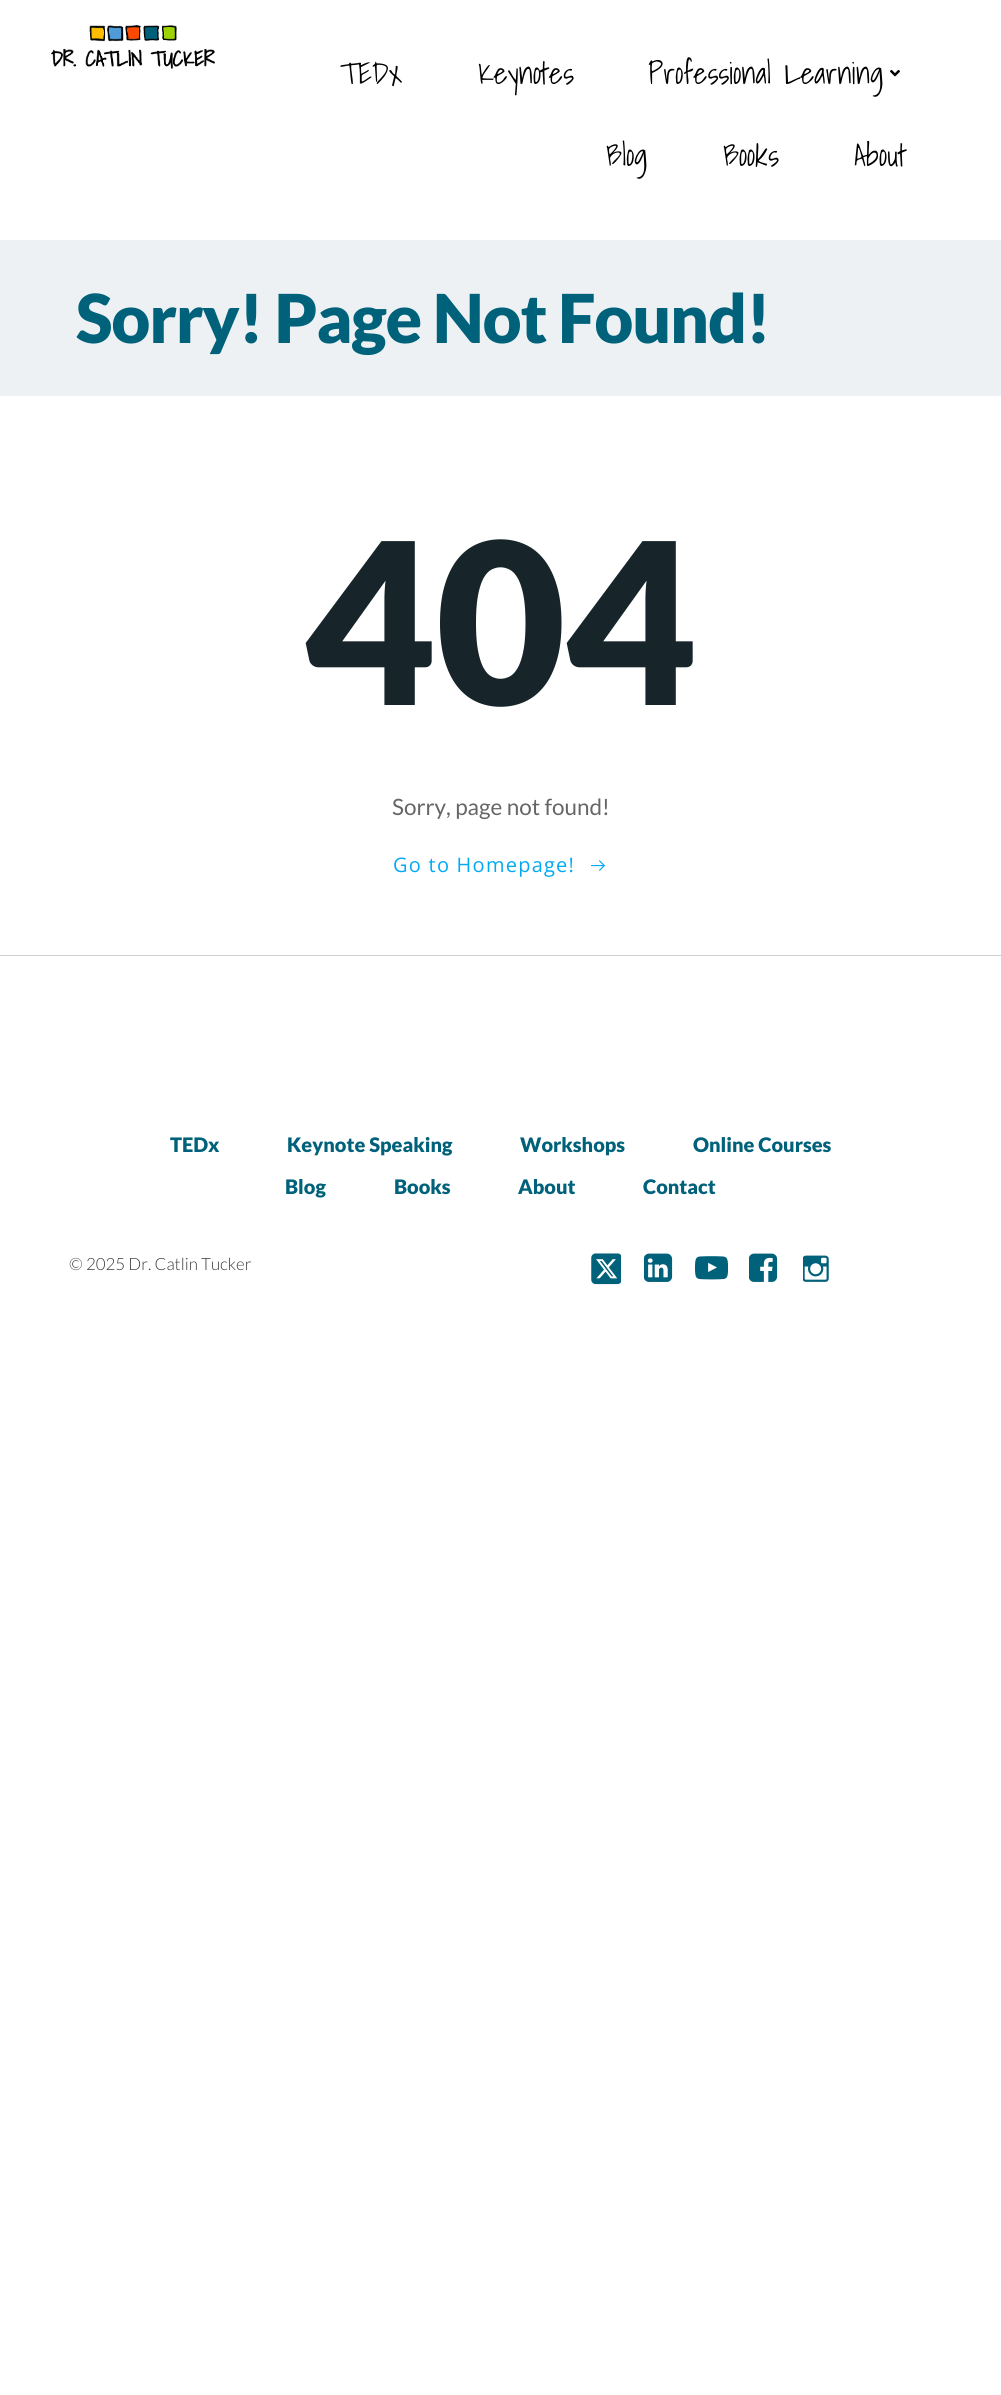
#include <cairo.h>
#include <math.h>
#include <stddef.h>


static void rgb(cairo_t *cr, int r, int g, int b)
{
	cairo_set_source_rgb(cr, r / 255.0, g / 255.0, b / 255.0);
}

static void face(cairo_t *cr, const char *family, double size, int italic, int bold)
{
	cairo_select_font_face(cr, family, italic ? CAIRO_FONT_SLANT_ITALIC : CAIRO_FONT_SLANT_NORMAL,
		bold ? CAIRO_FONT_WEIGHT_BOLD : CAIRO_FONT_WEIGHT_NORMAL);
	cairo_set_font_size(cr, size);
}

static void label(cairo_t *cr, double x, double y, const char *s)
{
	cairo_move_to(cr, x, y);
	cairo_show_text(cr, s);
}

static void tracked(cairo_t *cr, double x, double y, const char *s, double letter, double word)
{
	cairo_move_to(cr, x, y);
	while (*s) {
		char ch[5] = {0};
		int n = 0;
		do ch[n++] = *s++; while ((*s & 0xC0) == 0x80);
		cairo_show_text(cr, ch);
		cairo_rel_move_to(cr, letter + word * (*ch == ' '), 0);
	}
}

static void rect(cairo_t *cr, double x, double y, double w, double h)
{
	cairo_rectangle(cr, x, y, w, h);
	cairo_fill(cr);
}

static void image(cairo_t *cr, const char *path, double x, double y, double w, double h)
{
	cairo_surface_t *image = cairo_image_surface_create_from_png(path);
	cairo_save(cr);
	cairo_set_source_surface(cr, image, x, y);
	cairo_rectangle(cr, x, y, w, h);
	cairo_fill(cr);
	cairo_restore(cr);
	cairo_surface_destroy(image);
}

static void draw(cairo_t *cr) {
	rgb(cr, 255, 255, 255);
	cairo_paint(cr);
	image(cr, "image0.png", 51, 25, 164, 44);
	face(cr, "Shadows Into Light Light", 30, 0, 0);
	rgb(cr, 0, 0, 0);
	label(cr, 340, 84, "TEDx");
	label(cr, 478, 84, "Keynotes");
	label(cr, 648, 84, "Professional Learning");
	image(cr, "image1.png", 890, 69, 10, 8);
	label(cr, 606, 166, "Blog");
	label(cr, 723, 166, "Books");
	label(cr, 854, 166, "About");
	rgb(cr, 237, 241, 243);
	rect(cr, 0, 240, 1001, 156);
	face(cr, "Lato Black", 67.5, 0, 0);
	rgb(cr, 0, 97, 122);
	tracked(cr, 76, 343, "Sorry! Page Not Found!", -1.25, 0);
	face(cr, "Lato Black", 225, 0, 0);
	rgb(cr, 23, 37, 42);
	label(cr, 305, 705, "404");
	face(cr, "Lato", 22.5, 0, 0);
	rgb(cr, 102, 102, 102);
	label(cr, 392, 815, "Sorry, page not found!");
	face(cr, "Open Sans", 20, 0, 0);
	rgb(cr, 3, 169, 244);
	tracked(cr, 393, 872, "Go to Homepage!", 1.25, 0);
	image(cr, "image2.png", 591, 860, 14, 11);
	rgb(cr, 208, 208, 208);
	rect(cr, 0, 955, 1001, 1);
	face(cr, "Lato Black", 20, 0, 0);
	rgb(cr, 0, 97, 122);
	label(cr, 170, 1152, "TEDx");
	label(cr, 287, 1152, "Keynote Speaking");
	label(cr, 520, 1152, "Workshops");
	label(cr, 693, 1152, "Online Courses");
	label(cr, 285, 1194, "Blog");
	label(cr, 394, 1194, "Books");
	label(cr, 518, 1194, "About");
	label(cr, 643, 1194, "Contact");
	face(cr, "Lato Light", 16.9, 0, 0);
	rgb(cr, 60, 60, 60);
	label(cr, 69, 1270, "© 2025 Dr. Catlin Tucker");
	image(cr, "image3.png", 591, 1253, 30, 32);
	image(cr, "image4.png", 644, 1253, 29, 29);
	image(cr, "image5.png", 695, 1256, 33, 24);
	image(cr, "image6.png", 749, 1253, 29, 29);
	image(cr, "image7.png", 803, 1255, 26, 27);
}

int main(void) {
	cairo_surface_t *surface = cairo_image_surface_create(CAIRO_FORMAT_RGB24, 1001, 2395);
	cairo_t *cr = cairo_create(surface);
	cairo_font_options_t *options = cairo_font_options_create();
	cairo_font_options_set_hint_metrics(options, CAIRO_HINT_METRICS_OFF);
	cairo_font_options_set_hint_style(options, CAIRO_HINT_STYLE_NONE);
	cairo_set_font_options(cr, options);
	cairo_set_miter_limit(cr, 4);
	draw(cr);
	cairo_surface_write_to_png(surface, "render.png");
	cairo_font_options_destroy(options);
	cairo_destroy(cr);
	cairo_surface_destroy(surface);
	return 0;
}
